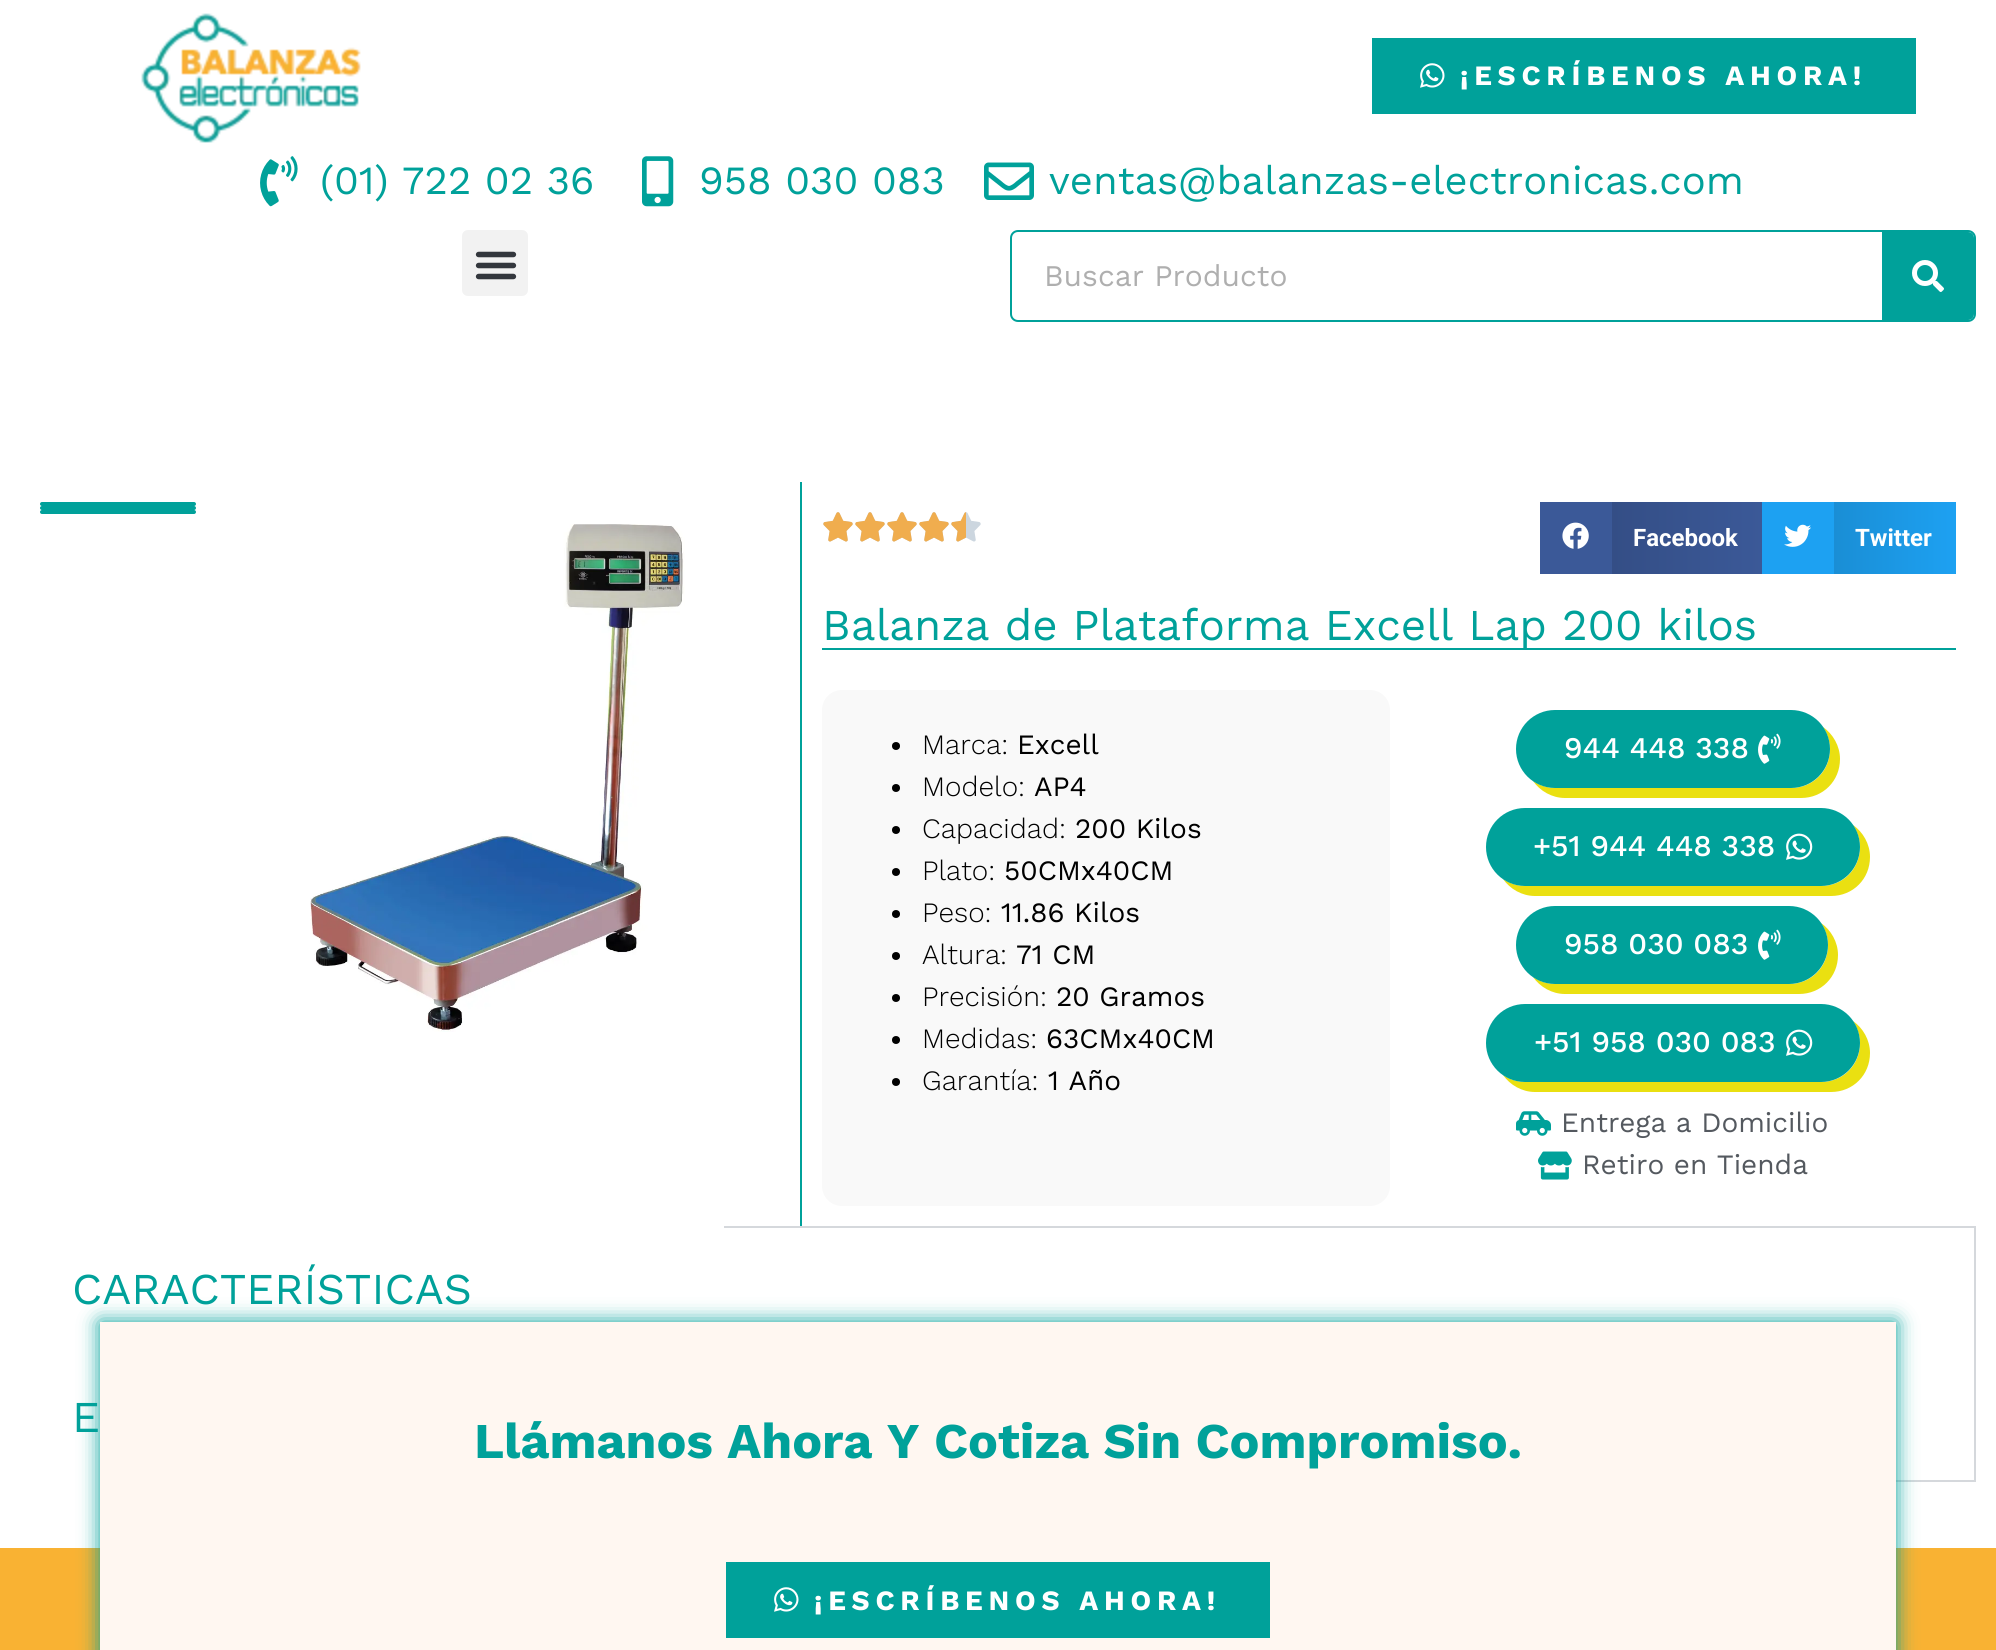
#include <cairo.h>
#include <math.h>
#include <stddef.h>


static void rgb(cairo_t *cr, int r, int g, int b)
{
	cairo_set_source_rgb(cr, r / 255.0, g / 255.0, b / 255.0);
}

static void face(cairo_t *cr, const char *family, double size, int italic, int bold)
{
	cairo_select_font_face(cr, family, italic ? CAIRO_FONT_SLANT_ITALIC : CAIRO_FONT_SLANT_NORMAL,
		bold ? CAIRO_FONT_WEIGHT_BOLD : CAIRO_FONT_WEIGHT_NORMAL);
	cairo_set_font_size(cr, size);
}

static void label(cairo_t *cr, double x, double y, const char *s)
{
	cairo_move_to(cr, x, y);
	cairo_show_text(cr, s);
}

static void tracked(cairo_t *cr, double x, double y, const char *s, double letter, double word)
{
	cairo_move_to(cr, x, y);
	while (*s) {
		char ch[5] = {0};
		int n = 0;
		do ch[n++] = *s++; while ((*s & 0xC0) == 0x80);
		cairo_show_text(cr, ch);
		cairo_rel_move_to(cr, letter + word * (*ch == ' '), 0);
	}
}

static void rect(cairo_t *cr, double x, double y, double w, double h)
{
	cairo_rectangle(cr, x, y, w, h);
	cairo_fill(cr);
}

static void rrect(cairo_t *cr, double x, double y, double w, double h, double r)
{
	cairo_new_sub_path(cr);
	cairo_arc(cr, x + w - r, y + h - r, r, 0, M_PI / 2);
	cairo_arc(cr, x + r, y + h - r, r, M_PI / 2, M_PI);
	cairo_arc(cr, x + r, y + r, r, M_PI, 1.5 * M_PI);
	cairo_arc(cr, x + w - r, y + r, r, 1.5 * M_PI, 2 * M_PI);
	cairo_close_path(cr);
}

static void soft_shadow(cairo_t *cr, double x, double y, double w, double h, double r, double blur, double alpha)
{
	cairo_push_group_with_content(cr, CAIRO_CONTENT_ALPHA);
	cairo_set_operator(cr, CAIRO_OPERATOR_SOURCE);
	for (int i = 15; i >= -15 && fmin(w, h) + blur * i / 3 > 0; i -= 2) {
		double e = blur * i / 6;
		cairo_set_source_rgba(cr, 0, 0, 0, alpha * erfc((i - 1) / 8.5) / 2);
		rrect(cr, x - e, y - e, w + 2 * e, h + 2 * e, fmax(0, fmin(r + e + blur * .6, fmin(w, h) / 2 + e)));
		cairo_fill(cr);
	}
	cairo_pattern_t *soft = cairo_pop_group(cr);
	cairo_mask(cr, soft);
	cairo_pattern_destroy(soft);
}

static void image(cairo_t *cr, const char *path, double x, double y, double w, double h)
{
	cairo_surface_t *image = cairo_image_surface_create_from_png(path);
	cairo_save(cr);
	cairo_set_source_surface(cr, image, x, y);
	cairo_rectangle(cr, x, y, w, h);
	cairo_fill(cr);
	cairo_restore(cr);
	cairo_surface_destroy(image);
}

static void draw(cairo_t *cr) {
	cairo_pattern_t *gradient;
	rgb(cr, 255, 255, 255);
	cairo_paint(cr);
	image(cr, "image0.png", 141, 13, 220, 130);
	rgb(cr, 0, 161, 154);
	rect(cr, 1372, 38, 544, 76);
	image(cr, "image1.png", 1420, 63, 25, 25);
	face(cr, "Work Sans", 28, 0, 1);
	rgb(cr, 255, 255, 255);
	tracked(cr, 1460, 85, "¡ESCRÍBENOS AHORA!", 5.8, 0);
	image(cr, "image2.png", 260, 156, 38, 51);
	face(cr, "Work Sans", 40, 0, 0);
	rgb(cr, 0, 161, 154);
	label(cr, 320, 194, "(01) 722 02 36");
	image(cr, "image3.png", 642, 156, 32, 51);
	label(cr, 699, 194, "958 030 083");
	image(cr, "image4.png", 984, 162, 50, 38);
	label(cr, 1049, 194, "ventas@balanzas-electronicas.com");
	rgb(cr, 242, 242, 242);
	rrect(cr, 462, 230, 66, 66, 6);
	cairo_fill(cr);
	image(cr, "image5.png", 475, 251, 42, 29);
	rrect(cr, 1011, 231, 964, 90, 7);
	rgb(cr, 0, 161, 154);
	cairo_stroke(cr);
	face(cr, "Work Sans", 30, 0, 0);
	rgb(cr, 175, 175, 175);
	label(cr, 1044, 286, "Buscar Producto");
	rgb(cr, 0, 161, 154);
	cairo_new_path(cr);
	cairo_move_to(cr, 1882, 232);
	cairo_line_to(cr, 1968, 232);
	cairo_curve_to(cr, 1971.5, 232, 1974, 234.5, 1974, 238);
	cairo_line_to(cr, 1974, 314);
	cairo_curve_to(cr, 1974, 317.5, 1971.5, 320, 1968, 320);
	cairo_line_to(cr, 1882, 320);
	cairo_close_path(cr);
	cairo_fill(cr);
	image(cr, "image6.png", 1912, 260, 32, 32);
	rrect(cr, 40, 502, 156, 4, 2);
	cairo_fill(cr);
	rrect(cr, 40, 506, 156, 4, 2);
	cairo_fill(cr);
	rrect(cr, 40, 510, 156, 4, 2);
	cairo_fill(cr);
	rect(cr, 800, 482, 2, 744);
	image(cr, "image7.png", 310, 524, 375, 508);
	image(cr, "image8.png", 823, 512, 30, 30);
	image(cr, "image9.png", 823, 512, 30, 30);
	image(cr, "image8.png", 855, 512, 30, 30);
	image(cr, "image9.png", 855, 512, 30, 30);
	image(cr, "image8.png", 887, 512, 30, 30);
	image(cr, "image9.png", 887, 512, 30, 30);
	image(cr, "image8.png", 919, 512, 30, 30);
	image(cr, "image9.png", 919, 512, 30, 30);
	image(cr, "image8.png", 951, 512, 30, 30);
	image(cr, "image10.png", 951, 512, 15, 30);
	rgb(cr, 59, 89, 152);
	rect(cr, 1540, 502, 72, 72);
	image(cr, "image11.png", 1562, 522, 27, 27);
	gradient = cairo_pattern_create_linear(1612, 538, 1762, 538);
	cairo_pattern_add_color_stop_rgba(gradient, 0, 0.204, 0.306, 0.525, 1);
	cairo_pattern_add_color_stop_rgba(gradient, 1, 0.231, 0.349, 0.596, 1);
	cairo_set_source(cr, gradient);
	cairo_pattern_destroy(gradient);
	rect(cr, 1612, 502, 150, 72);
	face(cr, "Roboto", 24, 0, 1);
	rgb(cr, 255, 255, 255);
	label(cr, 1633, 546, "Facebook");
	rgb(cr, 29, 161, 242);
	rect(cr, 1762, 502, 72, 72);
	image(cr, "image12.png", 1784, 524, 27, 23);
	gradient = cairo_pattern_create_linear(1834, 538, 1956, 538);
	cairo_pattern_add_color_stop_rgba(gradient, 0, 0.102, 0.557, 0.835, 1);
	cairo_pattern_add_color_stop_rgba(gradient, 1, 0.114, 0.631, 0.949, 1);
	cairo_set_source(cr, gradient);
	cairo_pattern_destroy(gradient);
	rect(cr, 1834, 502, 122, 72);
	rgb(cr, 255, 255, 255);
	label(cr, 1855, 546, "Twitter");
	rgb(cr, 0, 161, 154);
	rect(cr, 822, 648, 1134, 2);
	face(cr, "Work Sans", 44, 0, 0);
	label(cr, 822, 640, "Balanza de Plataforma Excell Lap 200 kilos");
	rgb(cr, 249, 249, 249);
	rrect(cr, 822, 690, 568, 516, 20);
	cairo_fill(cr);
	rgb(cr, 0, 0, 0);
	cairo_arc(cr, 896, 746, 4, 0, 2 * M_PI);
	cairo_fill(cr);
	face(cr, "Work Sans Light", 28, 0, 0);
	label(cr, 922, 754, "Marca:");
	face(cr, "Work Sans", 28, 0, 0);
	label(cr, 1017, 754, "Excell");
	cairo_new_path(cr);
	cairo_arc(cr, 896, 788, 4, 0, 2 * M_PI);
	cairo_fill(cr);
	face(cr, "Work Sans Light", 28, 0, 0);
	label(cr, 922, 796, "Modelo:");
	face(cr, "Work Sans", 28, 0, 0);
	label(cr, 1034, 796, "AP4");
	cairo_new_path(cr);
	cairo_arc(cr, 896, 830, 4, 0, 2 * M_PI);
	cairo_fill(cr);
	face(cr, "Work Sans Light", 28, 0, 0);
	label(cr, 922, 838, "Capacidad:");
	face(cr, "Work Sans", 28, 0, 0);
	label(cr, 1075, 838, "200 Kilos");
	cairo_new_path(cr);
	cairo_arc(cr, 896, 872, 4, 0, 2 * M_PI);
	cairo_fill(cr);
	face(cr, "Work Sans Light", 28, 0, 0);
	label(cr, 922, 880, "Plato:");
	face(cr, "Work Sans", 28, 0, 0);
	label(cr, 1004, 880, "50CMx40CM");
	cairo_new_path(cr);
	cairo_arc(cr, 896, 914, 4, 0, 2 * M_PI);
	cairo_fill(cr);
	face(cr, "Work Sans Light", 28, 0, 0);
	label(cr, 922, 922, "Peso:");
	face(cr, "Work Sans", 28, 0, 0);
	label(cr, 1001, 922, "11.86 Kilos");
	cairo_new_path(cr);
	cairo_arc(cr, 896, 956, 4, 0, 2 * M_PI);
	cairo_fill(cr);
	face(cr, "Work Sans Light", 28, 0, 0);
	label(cr, 922, 964, "Altura:");
	face(cr, "Work Sans", 28, 0, 0);
	label(cr, 1016, 964, "71 CM");
	cairo_new_path(cr);
	cairo_arc(cr, 896, 998, 4, 0, 2 * M_PI);
	cairo_fill(cr);
	face(cr, "Work Sans Light", 28, 0, 0);
	label(cr, 922, 1006, "Precisión:");
	face(cr, "Work Sans", 28, 0, 0);
	label(cr, 1056, 1006, "20 Gramos");
	cairo_new_path(cr);
	cairo_arc(cr, 896, 1040, 4, 0, 2 * M_PI);
	cairo_fill(cr);
	face(cr, "Work Sans Light", 28, 0, 0);
	label(cr, 922, 1048, "Medidas:");
	face(cr, "Work Sans", 28, 0, 0);
	label(cr, 1046, 1048, "63CMx40CM");
	cairo_new_path(cr);
	cairo_arc(cr, 896, 1082, 4, 0, 2 * M_PI);
	cairo_fill(cr);
	face(cr, "Work Sans Light", 28, 0, 0);
	label(cr, 922, 1090, "Garantía:");
	face(cr, "Work Sans", 28, 0, 0);
	label(cr, 1048, 1090, "1 Año");
	rgb(cr, 234, 224, 17);
	cairo_new_path(cr);
	cairo_move_to(cr, 1533, 781);
	cairo_curve_to(cr, 1540, 791, 1552, 798, 1565, 798);
	cairo_line_to(cr, 1801, 798);
	cairo_curve_to(cr, 1823, 798, 1840, 781, 1840, 759);
	cairo_curve_to(cr, 1840, 746, 1833, 734, 1823, 727);
	cairo_curve_to(cr, 1827, 733, 1830, 741, 1830, 749);
	cairo_curve_to(cr, 1830, 771, 1813, 788, 1791, 788);
	cairo_line_to(cr, 1555, 788);
	cairo_curve_to(cr, 1547, 788, 1539, 785, 1533, 781);
	cairo_close_path(cr);
	cairo_fill(cr);
	rgb(cr, 0, 161, 154);
	rrect(cr, 1516, 710, 314, 78, 39);
	cairo_fill(cr);
	face(cr, "Work Sans Medium", 30, 0, 0);
	rgb(cr, 255, 255, 255);
	label(cr, 1564, 758, "944 448 338");
	image(cr, "image13.png", 1758, 733, 23, 31);
	rgb(cr, 234, 224, 17);
	cairo_new_path(cr);
	cairo_move_to(cr, 1503, 879);
	cairo_curve_to(cr, 1510, 889, 1522, 896, 1535, 896);
	cairo_line_to(cr, 1831, 896);
	cairo_curve_to(cr, 1853, 896, 1870, 879, 1870, 857);
	cairo_curve_to(cr, 1870, 844, 1863, 832, 1853, 825);
	cairo_curve_to(cr, 1857, 831, 1860, 839, 1860, 847);
	cairo_curve_to(cr, 1860, 869, 1843, 886, 1821, 886);
	cairo_line_to(cr, 1525, 886);
	cairo_curve_to(cr, 1517, 886, 1509, 883, 1503, 879);
	cairo_close_path(cr);
	cairo_fill(cr);
	rgb(cr, 0, 161, 154);
	rrect(cr, 1486, 808, 374, 78, 39);
	cairo_fill(cr);
	rgb(cr, 255, 255, 255);
	label(cr, 1533, 856, "+51 944 448 338");
	image(cr, "image14.png", 1786, 833, 27, 27);
	rgb(cr, 234, 224, 17);
	cairo_new_path(cr);
	cairo_move_to(cr, 1533, 977);
	cairo_curve_to(cr, 1540, 987, 1552, 994, 1565, 994);
	cairo_line_to(cr, 1799, 994);
	cairo_curve_to(cr, 1821, 994, 1838, 977, 1838, 955);
	cairo_curve_to(cr, 1838, 942, 1831, 930, 1821, 923);
	cairo_curve_to(cr, 1825, 929, 1828, 937, 1828, 945);
	cairo_curve_to(cr, 1828, 967, 1811, 984, 1789, 984);
	cairo_line_to(cr, 1555, 984);
	cairo_curve_to(cr, 1547, 984, 1539, 981, 1533, 977);
	cairo_close_path(cr);
	cairo_fill(cr);
	rgb(cr, 0, 161, 154);
	rrect(cr, 1516, 906, 312, 78, 39);
	cairo_fill(cr);
	rgb(cr, 255, 255, 255);
	label(cr, 1564, 954, "958 030 083");
	image(cr, "image13.png", 1758, 929, 23, 31);
	rgb(cr, 234, 224, 17);
	cairo_new_path(cr);
	cairo_move_to(cr, 1503, 1075);
	cairo_curve_to(cr, 1510, 1085, 1522, 1092, 1535, 1092);
	cairo_line_to(cr, 1831, 1092);
	cairo_curve_to(cr, 1853, 1092, 1870, 1075, 1870, 1053);
	cairo_curve_to(cr, 1870, 1040, 1863, 1028, 1853, 1021);
	cairo_curve_to(cr, 1857, 1027, 1860, 1035, 1860, 1043);
	cairo_curve_to(cr, 1860, 1065, 1843, 1082, 1821, 1082);
	cairo_line_to(cr, 1525, 1082);
	cairo_curve_to(cr, 1517, 1082, 1509, 1079, 1503, 1075);
	cairo_close_path(cr);
	cairo_fill(cr);
	rgb(cr, 0, 161, 154);
	rrect(cr, 1486, 1004, 374, 78, 39);
	cairo_fill(cr);
	rgb(cr, 255, 255, 255);
	label(cr, 1534, 1052, "+51 958 030 083");
	image(cr, "image14.png", 1786, 1029, 27, 27);
	image(cr, "image15.png", 1516, 1111, 35, 25);
	face(cr, "Work Sans", 28, 0, 0);
	rgb(cr, 84, 89, 95);
	label(cr, 1561, 1132, "Entrega a Domicilio");
	image(cr, "image16.png", 1538, 1151, 34, 29);
	label(cr, 1582, 1174, "Retiro en Tienda");
	face(cr, "Work Sans", 44, 0, 0);
	rgb(cr, 0, 161, 154);
	label(cr, 72, 1304, "CARACTERÍSTICAS");
	label(cr, 72, 1432, "E");
	rgb(cr, 213, 216, 220);
	rect(cr, 724, 1226, 1252, 2);
	rect(cr, 1974, 1226, 2, 256);
	rect(cr, 1896, 1480, 80, 2);
	rgb(cr, 249, 178, 51);
	rect(cr, 0, 1548, 1996, 102);
	rgb(cr, 0, 161, 154);
	soft_shadow(cr, 100, 1322, 1796, 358, 0, 10, 1);
	rgb(cr, 255, 247, 241);
	rect(cr, 100, 1322, 1796, 328);
	face(cr, "Work Sans", 50, 0, 1);
	rgb(cr, 0, 161, 154);
	label(cr, 474, 1458, "Llámanos Ahora Y Cotiza Sin Compromiso.");
	rect(cr, 726, 1562, 544, 76);
	image(cr, "image1.png", 774, 1587, 25, 25);
	face(cr, "Work Sans", 28, 0, 1);
	rgb(cr, 255, 255, 255);
	tracked(cr, 814, 1610, "¡ESCRÍBENOS AHORA!", 5.8, 0);
}

int main(void) {
	cairo_surface_t *surface = cairo_image_surface_create(CAIRO_FORMAT_RGB24, 1996, 1650);
	cairo_t *cr = cairo_create(surface);
	cairo_font_options_t *options = cairo_font_options_create();
	cairo_font_options_set_hint_metrics(options, CAIRO_HINT_METRICS_OFF);
	cairo_font_options_set_hint_style(options, CAIRO_HINT_STYLE_NONE);
	cairo_set_font_options(cr, options);
	cairo_set_miter_limit(cr, 4);
	draw(cr);
	cairo_surface_write_to_png(surface, "render.png");
	cairo_font_options_destroy(options);
	cairo_destroy(cr);
	cairo_surface_destroy(surface);
	return 0;
}
